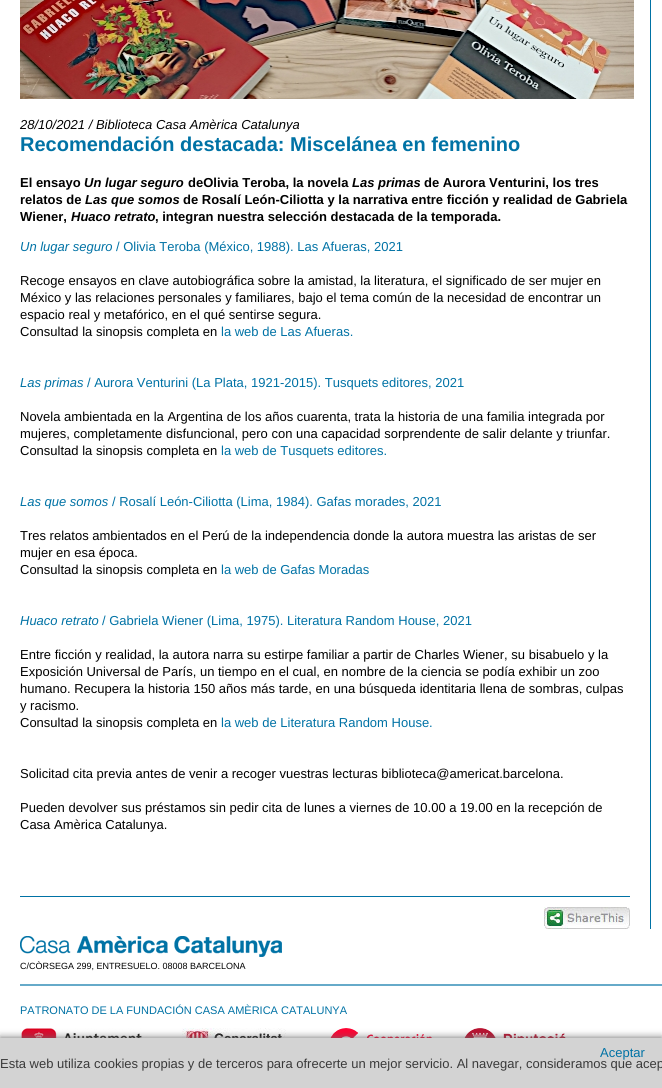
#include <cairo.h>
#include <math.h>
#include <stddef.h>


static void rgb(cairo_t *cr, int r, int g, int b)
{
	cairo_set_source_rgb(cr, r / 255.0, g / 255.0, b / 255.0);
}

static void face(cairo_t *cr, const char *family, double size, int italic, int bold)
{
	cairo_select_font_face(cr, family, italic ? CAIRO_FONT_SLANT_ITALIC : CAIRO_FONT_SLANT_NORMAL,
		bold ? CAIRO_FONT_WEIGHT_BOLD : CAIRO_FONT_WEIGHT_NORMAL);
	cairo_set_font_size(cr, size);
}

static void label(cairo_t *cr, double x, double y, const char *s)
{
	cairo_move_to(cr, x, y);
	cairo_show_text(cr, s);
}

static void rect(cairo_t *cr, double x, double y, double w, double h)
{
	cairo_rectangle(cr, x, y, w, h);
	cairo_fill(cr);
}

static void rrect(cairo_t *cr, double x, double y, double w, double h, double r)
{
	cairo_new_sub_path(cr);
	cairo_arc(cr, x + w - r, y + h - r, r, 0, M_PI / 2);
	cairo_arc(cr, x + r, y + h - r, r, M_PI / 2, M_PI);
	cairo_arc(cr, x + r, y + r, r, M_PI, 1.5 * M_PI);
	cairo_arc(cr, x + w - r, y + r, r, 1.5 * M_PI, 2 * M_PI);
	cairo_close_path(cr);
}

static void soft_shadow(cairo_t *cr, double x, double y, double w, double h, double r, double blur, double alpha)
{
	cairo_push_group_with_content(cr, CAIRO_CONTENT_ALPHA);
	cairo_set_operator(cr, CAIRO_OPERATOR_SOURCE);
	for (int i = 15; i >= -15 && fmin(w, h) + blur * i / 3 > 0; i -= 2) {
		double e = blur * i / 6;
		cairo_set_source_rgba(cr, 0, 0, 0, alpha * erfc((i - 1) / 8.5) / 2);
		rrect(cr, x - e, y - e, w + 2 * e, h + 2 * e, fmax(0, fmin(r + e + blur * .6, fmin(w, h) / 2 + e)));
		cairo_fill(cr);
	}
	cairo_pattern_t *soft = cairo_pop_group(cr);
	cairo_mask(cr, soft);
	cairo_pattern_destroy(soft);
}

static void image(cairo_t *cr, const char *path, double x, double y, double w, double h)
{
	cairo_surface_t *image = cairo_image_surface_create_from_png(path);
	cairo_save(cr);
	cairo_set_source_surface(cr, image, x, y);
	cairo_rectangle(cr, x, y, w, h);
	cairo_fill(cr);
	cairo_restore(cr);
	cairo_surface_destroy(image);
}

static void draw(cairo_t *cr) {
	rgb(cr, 255, 255, 255);
	cairo_paint(cr);
	rgb(cr, 0, 114, 165);
	rect(cr, 650, 0, 1, 929);
	rect(cr, 20, 896, 610, 1);
	image(cr, "image0.png", 20, 0, 614, 99);
	face(cr, "Liberation Sans", 13, 1, 0);
	rgb(cr, 0, 0, 0);
	label(cr, 20, 129, "28/10/2021 / Biblioteca Casa Amèrica Catalunya");
	face(cr, "Liberation Sans", 20, 0, 1);
	rgb(cr, 0, 114, 165);
	label(cr, 20, 151, "Recomendación destacada: Miscelánea en femenino");
	face(cr, "Liberation Sans", 13, 0, 1);
	rgb(cr, 0, 0, 0);
	label(cr, 20, 187, "El ensayo");
	face(cr, "Liberation Sans", 13, 1, 1);
	label(cr, 84, 187, "Un lugar seguro");
	face(cr, "Liberation Sans", 13, 0, 1);
	label(cr, 188, 187, "deOlivia Teroba, la novela");
	face(cr, "Liberation Sans", 13, 1, 1);
	label(cr, 352, 187, "Las primas");
	face(cr, "Liberation Sans", 13, 0, 1);
	label(cr, 424, 187, "de Aurora Venturini, los tres");
	label(cr, 20, 204, "relatos de");
	face(cr, "Liberation Sans", 13, 1, 1);
	label(cr, 85, 204, "Las que somos");
	face(cr, "Liberation Sans", 13, 0, 1);
	label(cr, 183, 204, "de Rosalí León-Ciliotta y la narrativa entre ficción y realidad de Gabriela");
	label(cr, 20, 221, "Wiener,");
	face(cr, "Liberation Sans", 13, 1, 1);
	label(cr, 71, 221, "Huaco retrato");
	face(cr, "Liberation Sans", 13, 0, 1);
	label(cr, 155, 221, ", integran nuestra selección destacada de la temporada.");
	face(cr, "Liberation Sans", 13, 1, 0);
	rgb(cr, 0, 114, 165);
	label(cr, 20, 251, "Un lugar seguro");
	face(cr, "Liberation Sans", 13, 0, 0);
	label(cr, 116, 251, "/ Olivia Teroba (México, 1988). Las Afueras, 2021");
	rgb(cr, 0, 0, 0);
	label(cr, 20, 285, "Recoge ensayos en clave autobiográfica sobre la amistad, la literatura, el significado de ser mujer en");
	label(cr, 20, 302, "México y las relaciones personales y familiares, bajo el tema común de la necesidad de encontrar un");
	label(cr, 20, 319, "espacio real y metafórico, en el qué sentirse segura.");
	label(cr, 20, 336, "Consultad la sinopsis completa en");
	rgb(cr, 0, 114, 165);
	label(cr, 221, 336, "la web de Las Afueras.");
	face(cr, "Liberation Sans", 13, 1, 0);
	label(cr, 20, 387, "Las primas");
	face(cr, "Liberation Sans", 13, 0, 0);
	label(cr, 87, 387, "/ Aurora Venturini (La Plata, 1921-2015). Tusquets editores, 2021");
	rgb(cr, 0, 0, 0);
	label(cr, 20, 421, "Novela ambientada en la Argentina de los años cuarenta, trata la historia de una familia integrada por");
	label(cr, 20, 438, "mujeres, completamente disfuncional, pero con una capacidad sorprendente de salir delante y triunfar.");
	label(cr, 20, 455, "Consultad la sinopsis completa en");
	rgb(cr, 0, 114, 165);
	label(cr, 221, 455, "la web de Tusquets editores.");
	face(cr, "Liberation Sans", 13, 1, 0);
	label(cr, 20, 506, "Las que somos");
	face(cr, "Liberation Sans", 13, 0, 0);
	label(cr, 112, 506, "/ Rosalí León-Ciliotta (Lima, 1984). Gafas morades, 2021");
	rgb(cr, 0, 0, 0);
	label(cr, 20, 540, "Tres relatos ambientados en el Perú de la independencia donde la autora muestra las aristas de ser");
	label(cr, 20, 557, "mujer en esa época.");
	label(cr, 20, 574, "Consultad la sinopsis completa en");
	rgb(cr, 0, 114, 165);
	label(cr, 221, 574, "la web de Gafas Moradas");
	face(cr, "Liberation Sans", 13, 1, 0);
	label(cr, 20, 625, "Huaco retrato");
	face(cr, "Liberation Sans", 13, 0, 0);
	label(cr, 102, 625, "/ Gabriela Wiener (Lima, 1975). Literatura Random House, 2021");
	rgb(cr, 0, 0, 0);
	label(cr, 20, 659, "Entre ficción y realidad, la autora narra su estirpe familiar a partir de Charles Wiener, su bisabuelo y la");
	label(cr, 20, 676, "Exposición Universal de París, un tiempo en el cual, en nombre de la ciencia se podía exhibir un zoo");
	label(cr, 20, 693, "humano. Recupera la historia 150 años más tarde, en una búsqueda identitaria llena de sombras, culpas");
	label(cr, 20, 710, "y racismo.");
	label(cr, 20, 727, "Consultad la sinopsis completa en");
	rgb(cr, 0, 114, 165);
	label(cr, 221, 727, "la web de Literatura Random House.");
	rgb(cr, 0, 0, 0);
	label(cr, 20, 778, "Solicitad cita previa antes de venir a recoger vuestras lecturas biblioteca@americat.barcelona.");
	label(cr, 20, 812, "Pueden devolver sus préstamos sin pedir cita de lunes a viernes de 10.00 a 19.00 en la recepción de");
	label(cr, 20, 829, "Casa Amèrica Catalunya.");
	image(cr, "image1.png", 544, 907, 86, 22);
	rgb(cr, 102, 170, 201);
	rect(cr, 20, 984, 642, 2);
	image(cr, "image2.png", 20, 936, 262, 21);
	face(cr, "Liberation Sans", 9, 0, 0);
	rgb(cr, 0, 0, 0);
	label(cr, 20, 969, "C/CÒRSEGA 299, ENTRESUELO. 08008 BARCELONA");
	face(cr, "Liberation Sans", 11, 0, 0);
	rgb(cr, 0, 114, 165);
	label(cr, 20, 1014, "PATRONATO DE LA FUNDACIÓN CASA AMÈRICA CATALUNYA");
	image(cr, "image3.png", 21, 1028, 129, 10);
	image(cr, "image4.png", 182, 1028, 112, 10);
	image(cr, "image5.png", 330, 1028, 102, 10);
	image(cr, "image6.png", 464, 1028, 102, 10);
	rgb(cr, 102, 102, 102);
	soft_shadow(cr, 0, 1038, 662, 50, 0, 4, 1);
	rgb(cr, 211, 211, 211);
	rect(cr, 0, 1038, 662, 50);
	face(cr, "Liberation Sans", 13, 0, 0);
	rgb(cr, 0, 114, 165);
	label(cr, 600, 1057, "Aceptar");
	rgb(cr, 58, 58, 58);
	label(cr, 0, 1068, "Esta web utiliza cookies propias y de terceros para ofrecerte un mejor servicio. Al navegar, consideramos que acep");
}

int main(void) {
	cairo_surface_t *surface = cairo_image_surface_create(CAIRO_FORMAT_RGB24, 662, 1088);
	cairo_t *cr = cairo_create(surface);
	cairo_font_options_t *options = cairo_font_options_create();
	cairo_font_options_set_hint_metrics(options, CAIRO_HINT_METRICS_OFF);
	cairo_font_options_set_hint_style(options, CAIRO_HINT_STYLE_NONE);
	cairo_set_font_options(cr, options);
	cairo_set_miter_limit(cr, 4);
	draw(cr);
	cairo_surface_write_to_png(surface, "render.png");
	cairo_font_options_destroy(options);
	cairo_destroy(cr);
	cairo_surface_destroy(surface);
	return 0;
}
